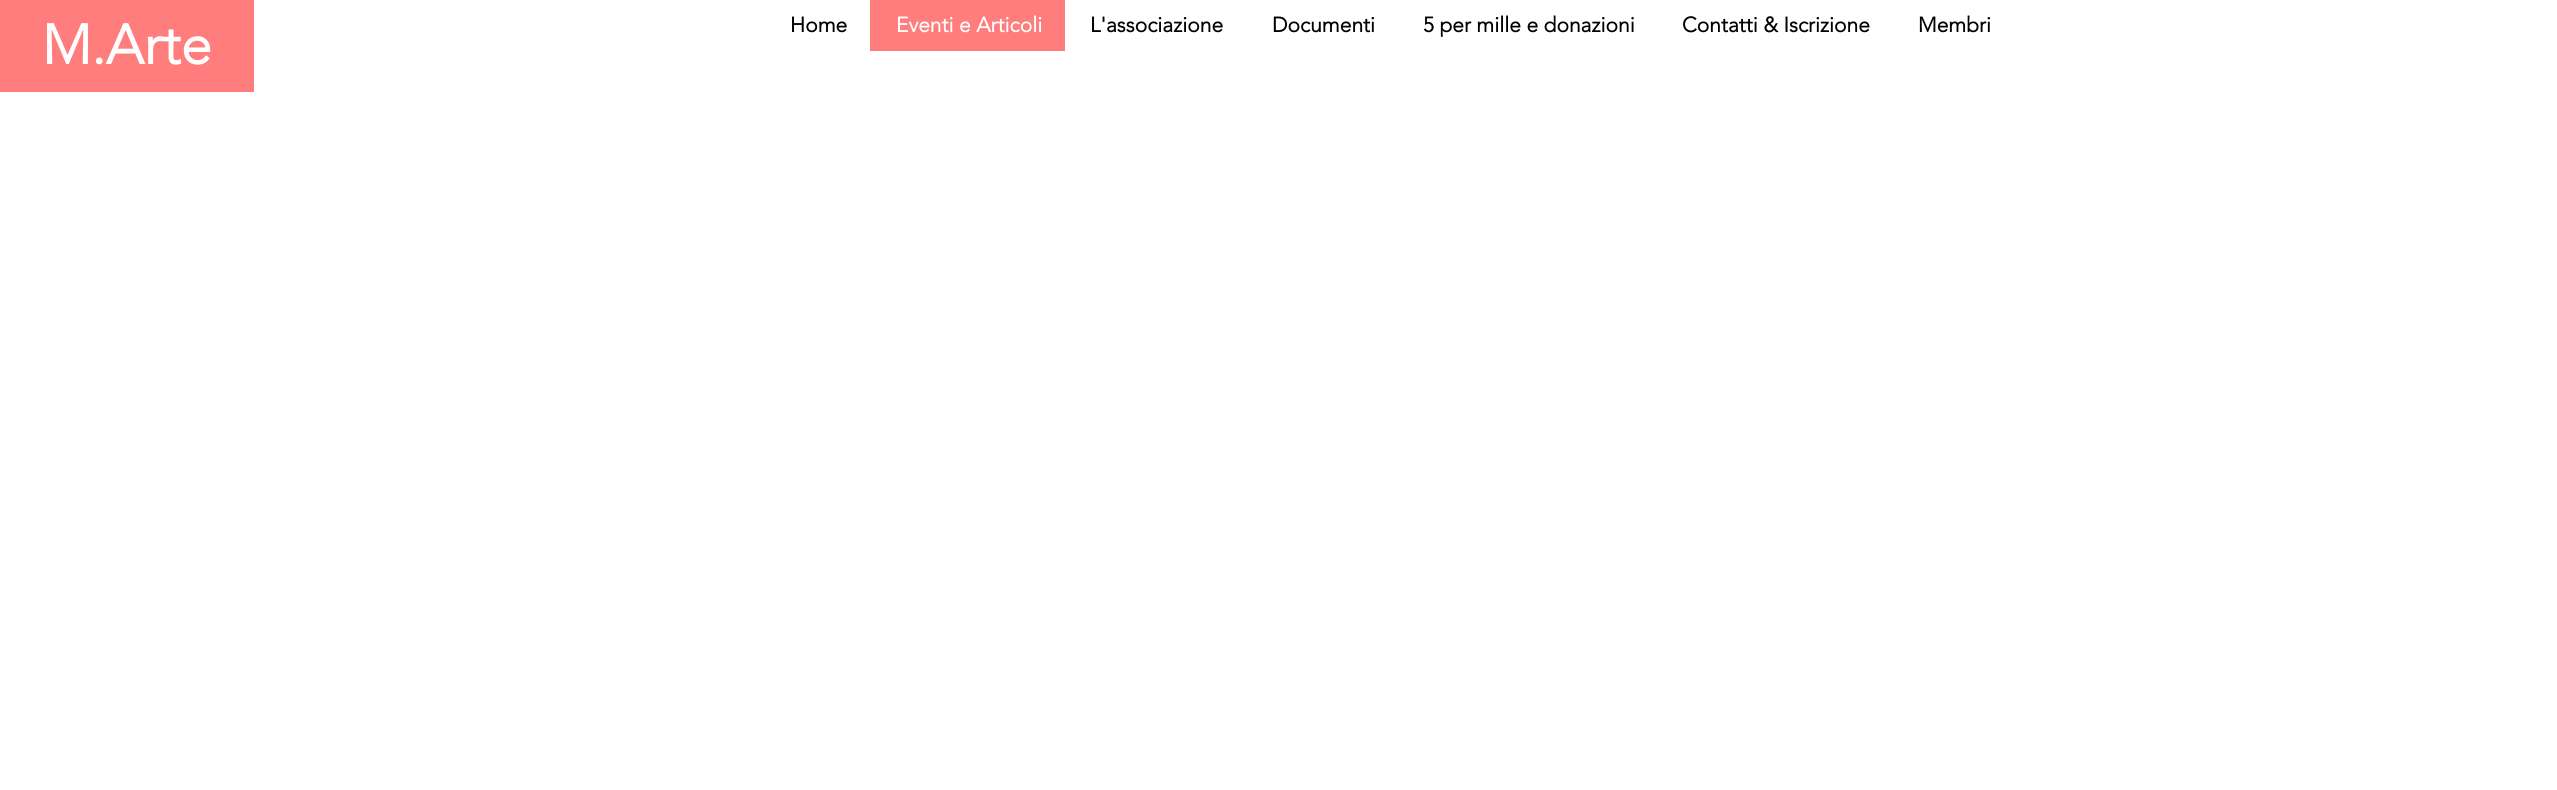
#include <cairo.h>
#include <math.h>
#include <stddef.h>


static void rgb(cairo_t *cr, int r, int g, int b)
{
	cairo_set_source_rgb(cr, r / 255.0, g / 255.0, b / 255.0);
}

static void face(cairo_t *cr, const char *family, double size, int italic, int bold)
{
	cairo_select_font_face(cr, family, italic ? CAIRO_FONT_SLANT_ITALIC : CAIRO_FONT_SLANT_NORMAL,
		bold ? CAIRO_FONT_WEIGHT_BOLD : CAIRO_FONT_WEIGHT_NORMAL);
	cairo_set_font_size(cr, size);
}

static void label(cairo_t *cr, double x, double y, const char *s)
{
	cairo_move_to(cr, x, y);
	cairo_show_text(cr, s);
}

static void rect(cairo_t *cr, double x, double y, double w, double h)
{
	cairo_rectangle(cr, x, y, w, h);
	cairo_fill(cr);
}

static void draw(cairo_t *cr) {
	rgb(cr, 255, 255, 255);
	cairo_paint(cr);
	rgb(cr, 255, 125, 125);
	rect(cr, 0, 0, 254, 92);
	face(cr, "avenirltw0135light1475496", 55.5, 0, 1);
	rgb(cr, 255, 255, 255);
	label(cr, 42, 64, "M.Arte");
	face(cr, "avenirltw0135light1475496", 21, 0, 1);
	rgb(cr, 0, 0, 0);
	label(cr, 790, 32, "Home");
	rgb(cr, 255, 125, 125);
	rect(cr, 870, 0, 195, 51);
	rgb(cr, 255, 255, 255);
	label(cr, 896, 32, "Eventi e Articoli");
	rgb(cr, 0, 0, 0);
	label(cr, 1090, 32, "L'associazione");
	label(cr, 1272, 32, "Documenti");
	label(cr, 1423, 32, "5 per mille e donazioni");
	label(cr, 1682, 32, "Contatti & Iscrizione");
	label(cr, 1918, 32, "Membri");
}

int main(void) {
	cairo_surface_t *surface = cairo_image_surface_create(CAIRO_FORMAT_RGB24, 2557, 790);
	cairo_t *cr = cairo_create(surface);
	cairo_font_options_t *options = cairo_font_options_create();
	cairo_font_options_set_hint_metrics(options, CAIRO_HINT_METRICS_OFF);
	cairo_font_options_set_hint_style(options, CAIRO_HINT_STYLE_NONE);
	cairo_set_font_options(cr, options);
	cairo_set_miter_limit(cr, 4);
	draw(cr);
	cairo_surface_write_to_png(surface, "render.png");
	cairo_font_options_destroy(options);
	cairo_destroy(cr);
	cairo_surface_destroy(surface);
	return 0;
}
